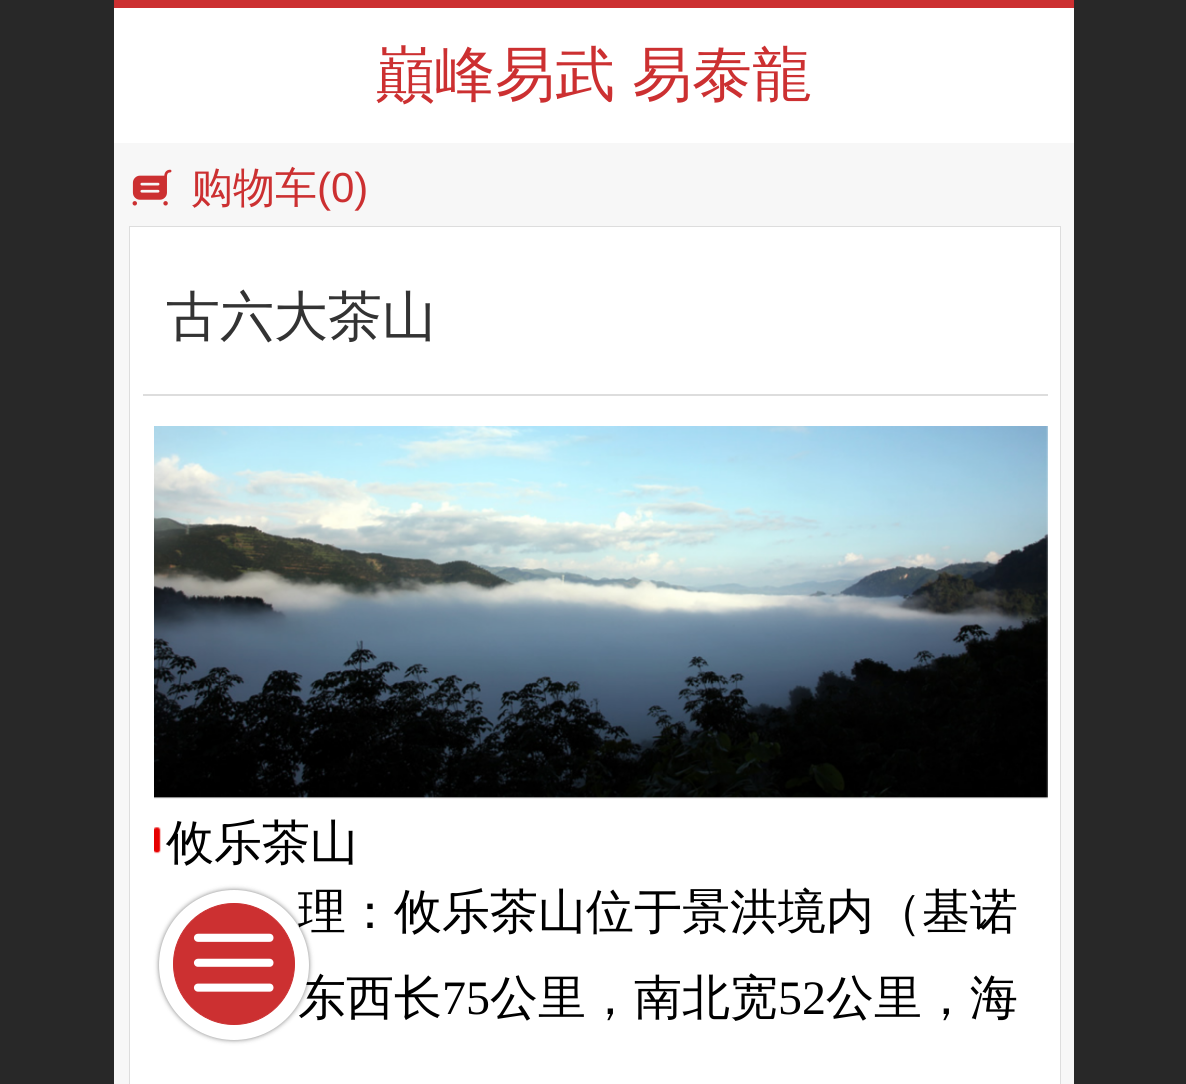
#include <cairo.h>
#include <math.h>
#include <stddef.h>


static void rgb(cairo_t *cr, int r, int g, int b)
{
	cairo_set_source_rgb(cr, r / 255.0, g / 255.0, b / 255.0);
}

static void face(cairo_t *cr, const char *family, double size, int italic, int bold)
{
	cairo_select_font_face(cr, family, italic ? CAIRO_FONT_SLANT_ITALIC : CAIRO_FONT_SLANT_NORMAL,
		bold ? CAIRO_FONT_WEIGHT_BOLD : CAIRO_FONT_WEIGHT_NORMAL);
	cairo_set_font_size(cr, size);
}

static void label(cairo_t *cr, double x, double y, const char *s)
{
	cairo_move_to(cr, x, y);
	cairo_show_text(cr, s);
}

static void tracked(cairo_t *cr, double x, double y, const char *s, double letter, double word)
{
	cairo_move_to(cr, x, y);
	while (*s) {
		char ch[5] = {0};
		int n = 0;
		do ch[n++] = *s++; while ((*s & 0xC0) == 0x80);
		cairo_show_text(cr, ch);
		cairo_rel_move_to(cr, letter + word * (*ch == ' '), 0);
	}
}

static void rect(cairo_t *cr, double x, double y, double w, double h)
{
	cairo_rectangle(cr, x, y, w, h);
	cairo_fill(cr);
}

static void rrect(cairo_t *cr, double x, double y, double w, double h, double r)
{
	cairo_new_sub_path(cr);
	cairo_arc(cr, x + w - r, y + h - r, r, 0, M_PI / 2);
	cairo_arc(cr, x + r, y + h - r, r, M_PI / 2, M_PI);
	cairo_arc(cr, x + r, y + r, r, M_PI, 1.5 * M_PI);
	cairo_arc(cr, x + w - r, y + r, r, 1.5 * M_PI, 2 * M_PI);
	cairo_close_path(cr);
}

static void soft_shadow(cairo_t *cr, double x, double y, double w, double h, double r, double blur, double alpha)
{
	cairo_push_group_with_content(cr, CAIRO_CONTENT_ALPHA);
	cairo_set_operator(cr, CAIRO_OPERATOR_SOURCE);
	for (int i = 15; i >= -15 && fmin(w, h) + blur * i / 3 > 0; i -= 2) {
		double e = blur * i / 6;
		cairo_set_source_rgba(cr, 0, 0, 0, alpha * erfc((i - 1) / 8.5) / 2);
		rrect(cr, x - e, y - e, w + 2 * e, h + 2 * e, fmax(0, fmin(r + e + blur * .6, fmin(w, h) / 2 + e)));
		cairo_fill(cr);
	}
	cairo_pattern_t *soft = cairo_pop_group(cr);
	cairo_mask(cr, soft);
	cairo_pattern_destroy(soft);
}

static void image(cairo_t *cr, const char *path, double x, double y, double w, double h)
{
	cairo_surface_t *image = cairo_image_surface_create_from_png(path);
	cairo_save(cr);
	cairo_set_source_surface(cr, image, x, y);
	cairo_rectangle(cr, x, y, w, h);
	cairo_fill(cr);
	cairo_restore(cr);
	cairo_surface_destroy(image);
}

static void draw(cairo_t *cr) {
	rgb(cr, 255, 255, 255);
	cairo_paint(cr);
	rgb(cr, 40, 40, 40);
	rect(cr, 0, 0, 114, 1084);
	rgb(cr, 204, 48, 49);
	rect(cr, 114, 0, 960, 8);
	face(cr, "WenQuanYi Zen Hei Medium", 60, 0, 0);
	tracked(cr, 375, 95, "巔峰易武 易泰龍", 0, -1);
	rgb(cr, 247, 247, 247);
	rect(cr, 114, 143, 960, 941);
	image(cr, "image0.png", 132, 169, 40, 37);
	face(cr, "WenQuanYi Zen Hei Medium", 42, 0, 0);
	rgb(cr, 204, 48, 49);
	label(cr, 191, 202, "购物车");
	face(cr, "Liberation Sans", 42, 0, 0);
	label(cr, 317, 202, "(0)");
	rgb(cr, 255, 255, 255);
	cairo_rectangle(cr, 129.5, 226.5, 931, 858);
	cairo_fill_preserve(cr);
	rgb(cr, 221, 221, 221);
	cairo_set_line_width(cr, 1);
	cairo_stroke(cr);
	rgb(cr, 0, 0, 0);
	soft_shadow(cr, 159, 890, 150, 150, 75, 2.5, 0.5);
	face(cr, "WenQuanYi Zen Hei Medium", 48, 0, 0);
	rgb(cr, 0, 0, 0);
	label(cr, 298, 928, "理：攸乐茶山位于景洪境内（基诺");
	label(cr, 298, 1014, "东西长");
	rgb(cr, 255, 255, 255);
	cairo_new_path(cr);
	cairo_arc(cr, 234, 965, 75, 0, 2 * M_PI);
	cairo_fill(cr);
	rgb(cr, 204, 48, 49);
	cairo_arc(cr, 234, 964, 60.5, 0, 2 * M_PI);
	cairo_fill_preserve(cr);
	cairo_stroke(cr);
	image(cr, "image1.png", 193, 933, 81, 59);
	rgb(cr, 221, 221, 221);
	rect(cr, 143, 394, 905, 2);
	face(cr, "WenQuanYi Zen Hei Medium", 54, 0, 0);
	rgb(cr, 51, 51, 51);
	label(cr, 166, 335, "古六大茶山");
	image(cr, "image2.png", 154, 426, 894, 373);
	image(cr, "image3.png", 154, 827, 7, 27);
	face(cr, "WenQuanYi Zen Hei Medium", 48, 0, 0);
	rgb(cr, 0, 0, 0);
	label(cr, 166, 859, "攸乐茶山");
	face(cr, "Liberation Serif", 48, 0, 0);
	label(cr, 442, 1014, "75");
	face(cr, "WenQuanYi Zen Hei Medium", 48, 0, 0);
	label(cr, 490, 1014, "公里，南北宽");
	face(cr, "Liberation Serif", 48, 0, 0);
	label(cr, 778, 1014, "52");
	face(cr, "WenQuanYi Zen Hei Medium", 48, 0, 0);
	label(cr, 826, 1014, "公里，海");
	rgb(cr, 40, 40, 40);
	rect(cr, 1074, 0, 112, 1084);
}

int main(void) {
	cairo_surface_t *surface = cairo_image_surface_create(CAIRO_FORMAT_RGB24, 1186, 1084);
	cairo_t *cr = cairo_create(surface);
	cairo_font_options_t *options = cairo_font_options_create();
	cairo_font_options_set_hint_metrics(options, CAIRO_HINT_METRICS_OFF);
	cairo_font_options_set_hint_style(options, CAIRO_HINT_STYLE_NONE);
	cairo_set_font_options(cr, options);
	cairo_set_miter_limit(cr, 4);
	draw(cr);
	cairo_surface_write_to_png(surface, "render.png");
	cairo_font_options_destroy(options);
	cairo_destroy(cr);
	cairo_surface_destroy(surface);
	return 0;
}
